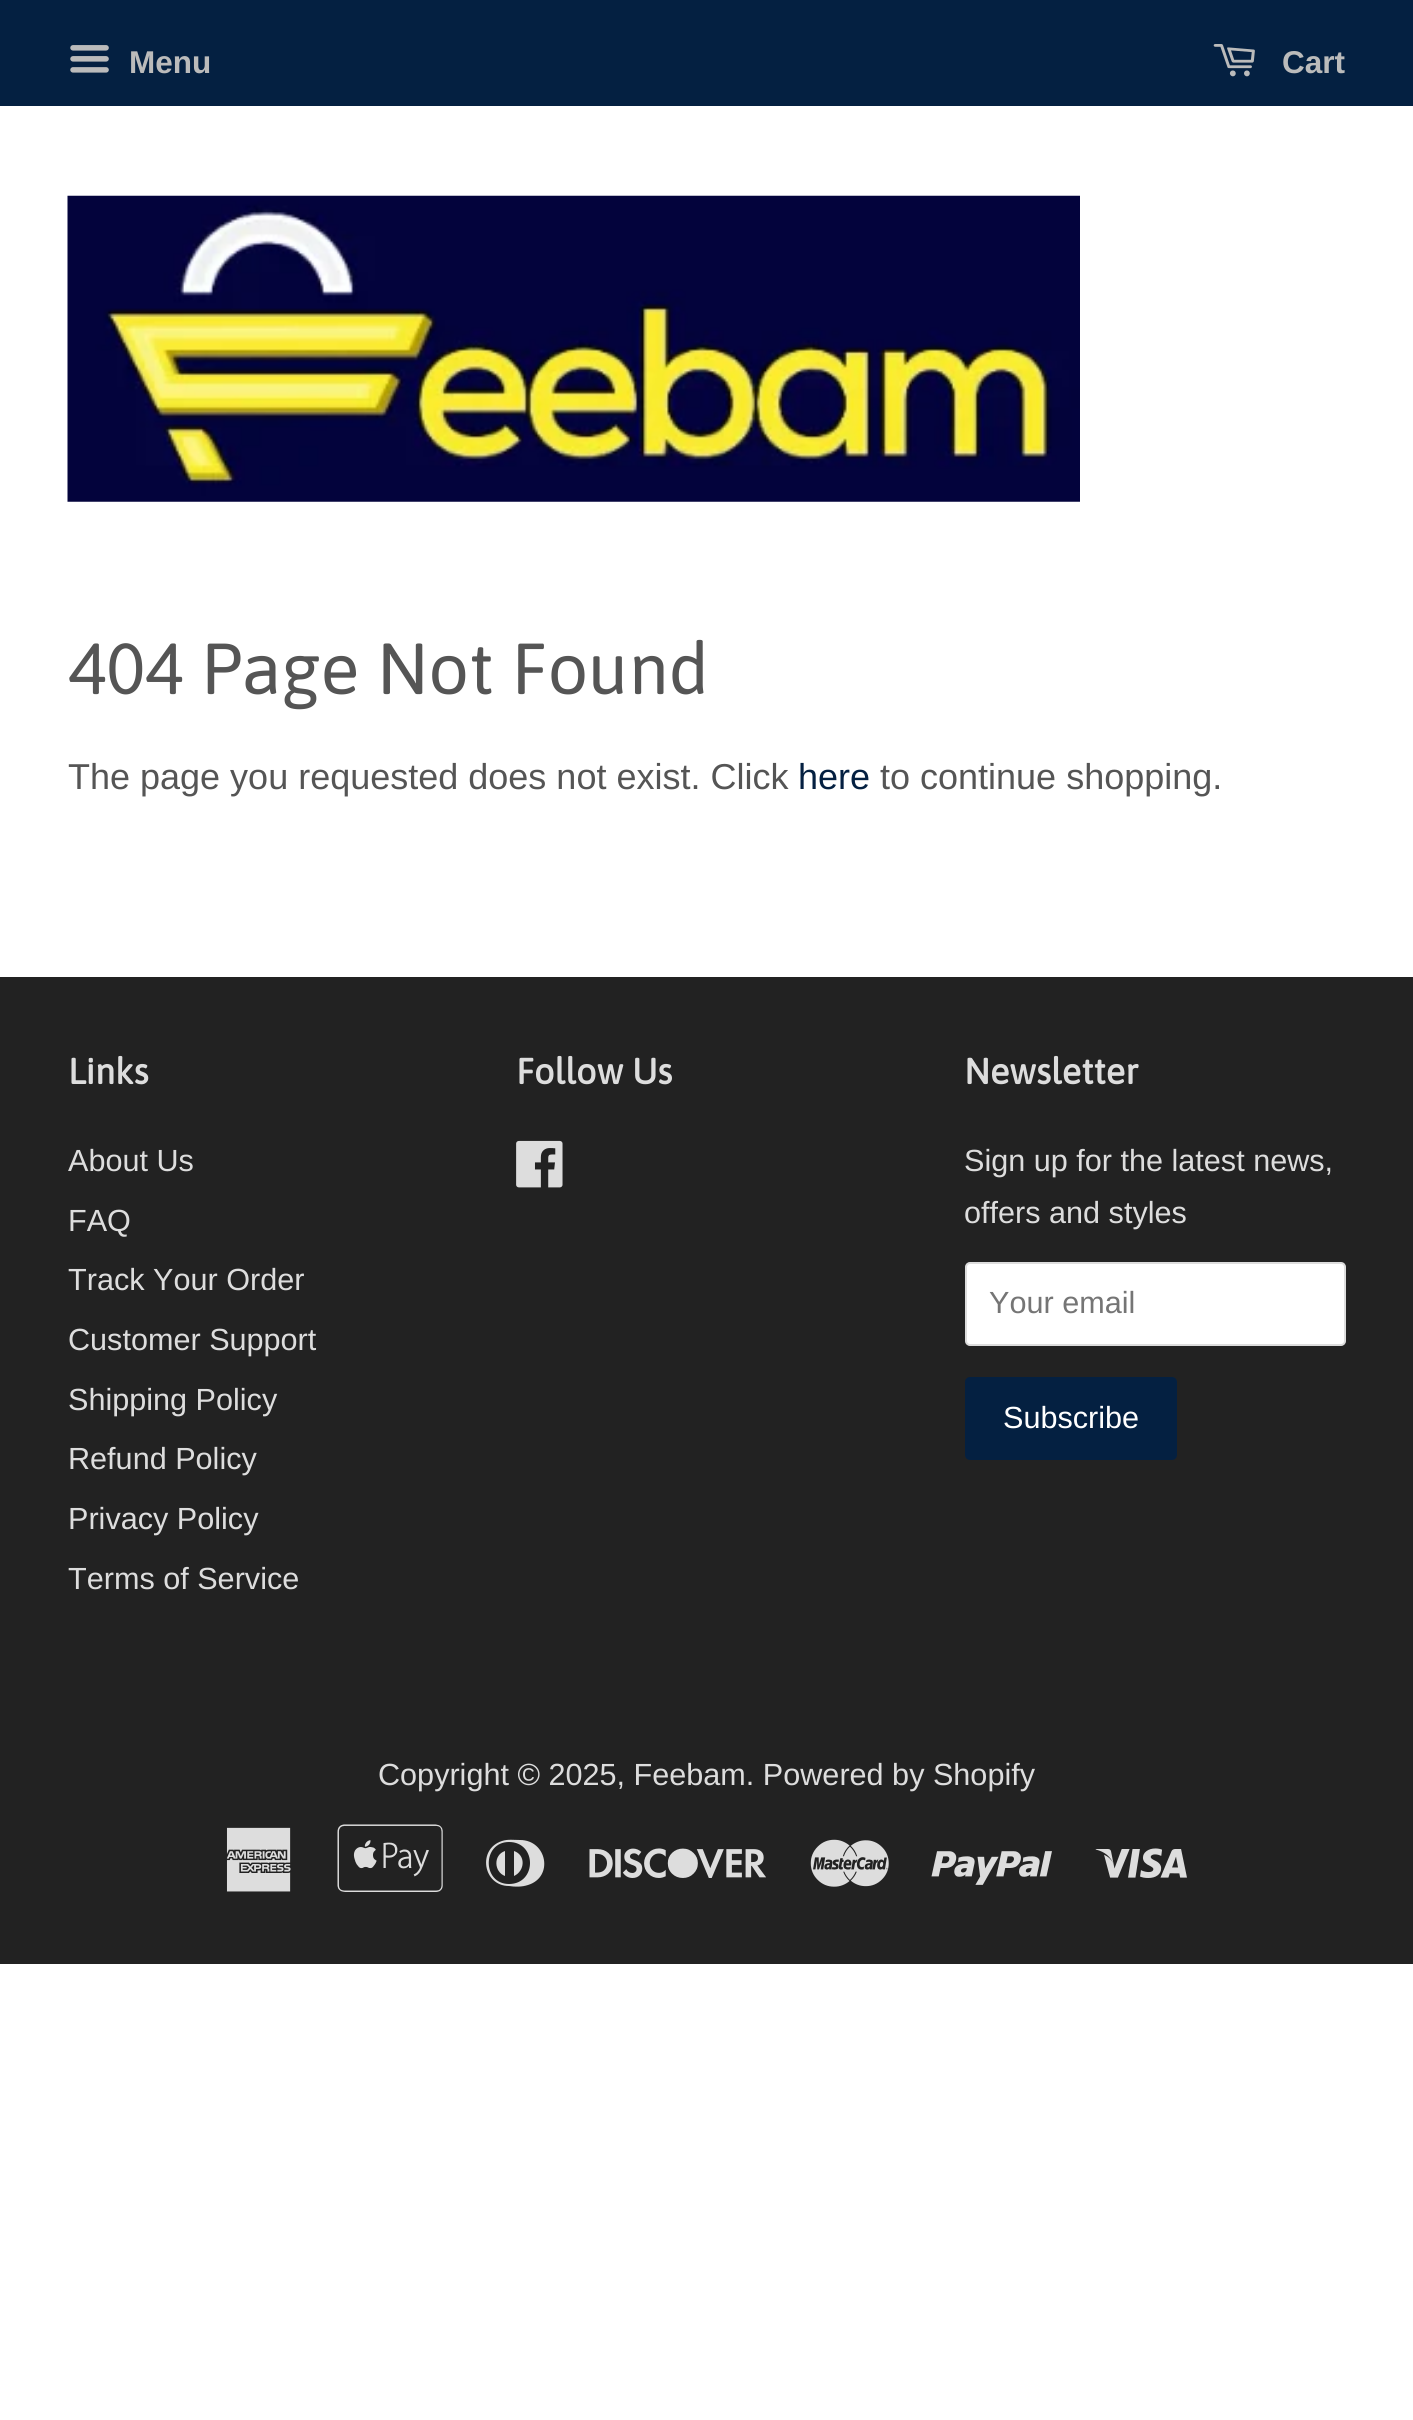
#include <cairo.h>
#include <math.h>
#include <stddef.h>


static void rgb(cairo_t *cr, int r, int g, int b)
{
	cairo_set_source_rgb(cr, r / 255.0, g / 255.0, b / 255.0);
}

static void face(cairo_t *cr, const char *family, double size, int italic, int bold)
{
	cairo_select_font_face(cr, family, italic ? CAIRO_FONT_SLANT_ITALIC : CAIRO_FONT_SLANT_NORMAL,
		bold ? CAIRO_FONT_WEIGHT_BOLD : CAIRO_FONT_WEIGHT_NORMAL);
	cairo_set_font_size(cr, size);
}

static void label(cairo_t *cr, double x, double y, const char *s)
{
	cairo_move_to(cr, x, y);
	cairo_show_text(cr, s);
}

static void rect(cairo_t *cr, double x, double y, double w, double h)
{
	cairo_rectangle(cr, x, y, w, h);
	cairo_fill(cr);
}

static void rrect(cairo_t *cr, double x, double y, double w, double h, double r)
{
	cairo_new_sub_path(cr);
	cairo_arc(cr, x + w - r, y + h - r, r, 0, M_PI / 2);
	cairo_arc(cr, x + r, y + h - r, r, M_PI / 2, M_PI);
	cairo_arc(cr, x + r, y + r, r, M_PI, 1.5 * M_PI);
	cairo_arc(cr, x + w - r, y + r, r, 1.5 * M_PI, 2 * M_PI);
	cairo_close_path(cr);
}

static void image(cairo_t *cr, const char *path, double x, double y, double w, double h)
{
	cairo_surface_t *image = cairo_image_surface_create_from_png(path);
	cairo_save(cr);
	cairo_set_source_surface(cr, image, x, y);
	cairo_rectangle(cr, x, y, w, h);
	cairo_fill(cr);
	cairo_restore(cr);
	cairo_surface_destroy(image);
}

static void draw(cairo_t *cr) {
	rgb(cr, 255, 255, 255);
	cairo_paint(cr);
	rgb(cr, 4, 32, 65);
	rect(cr, 0, 0, 1413, 106);
	image(cr, "image0.png", 70, 45, 39, 28);
	face(cr, "Liberation Sans", 31.5, 0, 1);
	rgb(cr, 187, 187, 187);
	label(cr, 129, 73, "Menu");
	image(cr, "image1.png", 1213, 44, 42, 33);
	label(cr, 1282, 73, "Cart");
	image(cr, "image2.png", 67, 195, 1013, 307);
	face(cr, "Asap", 72, 0, 0);
	rgb(cr, 85, 85, 85);
	label(cr, 68, 694, "404 Page Not Found");
	face(cr, "Liberation Sans", 36, 0, 0);
	label(cr, 68, 789, "The page you requested does not exist. Click");
	rgb(cr, 4, 32, 65);
	label(cr, 798, 789, "here");
	rgb(cr, 85, 85, 85);
	label(cr, 880, 789, "to continue shopping.");
	rgb(cr, 34, 34, 34);
	rect(cr, 0, 977, 1413, 987);
	face(cr, "Asap", 36, 0, 1);
	rgb(cr, 221, 221, 221);
	label(cr, 68, 1084, "Links");
	face(cr, "Liberation Sans", 30.6, 0, 0);
	label(cr, 68, 1171, "About Us");
	label(cr, 68, 1231, "FAQ");
	label(cr, 68, 1290, "Track Your Order");
	label(cr, 68, 1350, "Customer Support");
	label(cr, 68, 1410, "Shipping Policy");
	label(cr, 68, 1469, "Refund Policy");
	label(cr, 68, 1529, "Privacy Policy");
	label(cr, 68, 1589, "Terms of Service");
	face(cr, "Asap", 36, 0, 1);
	label(cr, 516, 1084, "Follow Us");
	image(cr, "image3.png", 516, 1140, 47, 48);
	label(cr, 964, 1084, "Newsletter");
	face(cr, "Liberation Sans", 30.6, 0, 0);
	label(cr, 964, 1171, "Sign up for the latest news,");
	label(cr, 964, 1223, "offers and styles");
	rgb(cr, 255, 255, 255);
	rrect(cr, 966, 1263, 379, 82, 4);
	cairo_fill_preserve(cr);
	rgb(cr, 221, 221, 221);
	cairo_stroke(cr);
	rgb(cr, 117, 117, 117);
	label(cr, 989, 1313, "Your email");
	rgb(cr, 4, 32, 65);
	rrect(cr, 965, 1377, 212, 83, 5);
	cairo_fill(cr);
	rgb(cr, 255, 255, 255);
	label(cr, 1003, 1428, "Subscribe");
	rgb(cr, 221, 221, 221);
	label(cr, 378, 1785, "Copyright © 2025, Feebam. Powered by Shopify");
	image(cr, "image4.png", 226, 1827, 65, 65);
	image(cr, "image5.png", 337, 1824, 106, 68);
	cairo_new_path(cr);
	cairo_move_to(cr, 520, 1840);
	cairo_curve_to(cr, 547, 1840, 554, 1877, 528, 1885);
	cairo_curve_to(cr, 522, 1887, 515, 1887, 509, 1886);
	cairo_curve_to(cr, 483, 1886, 477, 1849, 502, 1841);
	cairo_curve_to(cr, 508, 1839, 514, 1840, 520, 1840);
	cairo_close_path(cr);
	cairo_move_to(cr, 509, 1884);
	cairo_curve_to(cr, 537, 1884, 537, 1842, 509, 1842);
	cairo_curve_to(cr, 482, 1842, 482, 1884, 509, 1884);
	cairo_close_path(cr);
	cairo_move_to(cr, 505, 1876);
	cairo_curve_to(cr, 494, 1872, 493, 1855, 505, 1851);
	cairo_close_path(cr);
	cairo_move_to(cr, 514, 1851);
	cairo_curve_to(cr, 526, 1855, 525, 1871, 514, 1876);
	cairo_close_path(cr);
	cairo_fill(cr);
	image(cr, "image6.png", 589, 1848, 177, 30);
	image(cr, "image7.png", 810, 1839, 79, 48);
	image(cr, "image8.png", 931, 1851, 121, 34);
	image(cr, "image9.png", 1095, 1848, 92, 30);
}

int main(void) {
	cairo_surface_t *surface = cairo_image_surface_create(CAIRO_FORMAT_RGB24, 1413, 2420);
	cairo_t *cr = cairo_create(surface);
	cairo_font_options_t *options = cairo_font_options_create();
	cairo_font_options_set_hint_metrics(options, CAIRO_HINT_METRICS_OFF);
	cairo_font_options_set_hint_style(options, CAIRO_HINT_STYLE_NONE);
	cairo_set_font_options(cr, options);
	cairo_set_miter_limit(cr, 4);
	draw(cr);
	cairo_surface_write_to_png(surface, "render.png");
	cairo_font_options_destroy(options);
	cairo_destroy(cr);
	cairo_surface_destroy(surface);
	return 0;
}
